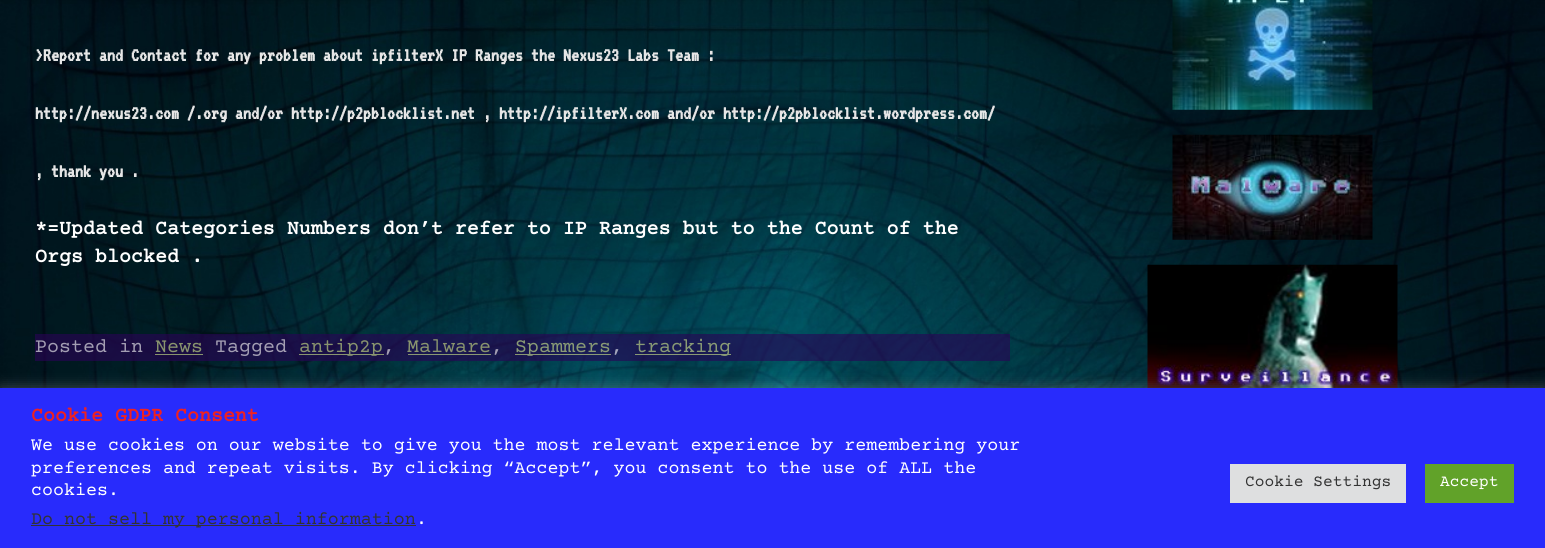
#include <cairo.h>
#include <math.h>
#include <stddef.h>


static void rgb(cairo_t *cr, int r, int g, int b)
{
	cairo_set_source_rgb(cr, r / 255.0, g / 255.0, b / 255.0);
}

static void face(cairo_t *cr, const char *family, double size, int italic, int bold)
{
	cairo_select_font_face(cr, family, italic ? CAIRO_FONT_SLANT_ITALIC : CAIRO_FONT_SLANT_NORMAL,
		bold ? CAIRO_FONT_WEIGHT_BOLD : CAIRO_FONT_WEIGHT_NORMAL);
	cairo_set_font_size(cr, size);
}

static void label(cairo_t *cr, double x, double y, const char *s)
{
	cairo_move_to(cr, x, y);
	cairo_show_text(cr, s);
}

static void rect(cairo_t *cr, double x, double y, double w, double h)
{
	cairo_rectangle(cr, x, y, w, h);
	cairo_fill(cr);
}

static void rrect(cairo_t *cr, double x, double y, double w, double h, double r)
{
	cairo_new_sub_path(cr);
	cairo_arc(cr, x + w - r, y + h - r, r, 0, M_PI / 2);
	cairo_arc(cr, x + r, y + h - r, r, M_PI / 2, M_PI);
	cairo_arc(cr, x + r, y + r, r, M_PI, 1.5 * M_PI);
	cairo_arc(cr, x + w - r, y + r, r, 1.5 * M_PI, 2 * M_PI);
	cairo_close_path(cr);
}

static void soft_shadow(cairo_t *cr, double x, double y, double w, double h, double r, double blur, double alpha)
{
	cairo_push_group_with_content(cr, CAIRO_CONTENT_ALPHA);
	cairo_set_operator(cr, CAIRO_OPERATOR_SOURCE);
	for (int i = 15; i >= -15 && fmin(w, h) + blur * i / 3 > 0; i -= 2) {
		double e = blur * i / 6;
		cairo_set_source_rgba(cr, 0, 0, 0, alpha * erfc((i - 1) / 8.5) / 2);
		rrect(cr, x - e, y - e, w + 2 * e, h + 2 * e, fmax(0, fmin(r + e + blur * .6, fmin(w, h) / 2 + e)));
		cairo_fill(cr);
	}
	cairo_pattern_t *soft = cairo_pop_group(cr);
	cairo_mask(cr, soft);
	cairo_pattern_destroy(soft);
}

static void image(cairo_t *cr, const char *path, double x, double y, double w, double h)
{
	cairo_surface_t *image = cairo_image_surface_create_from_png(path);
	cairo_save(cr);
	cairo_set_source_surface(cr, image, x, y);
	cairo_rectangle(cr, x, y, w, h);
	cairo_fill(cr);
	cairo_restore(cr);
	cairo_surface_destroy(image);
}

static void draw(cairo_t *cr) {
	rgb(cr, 255, 255, 255);
	cairo_paint(cr);
	image(cr, "image0.png", 0, 0, 1545, 388);
	face(cr, "VT323", 20, 0, 1);
	rgb(cr, 230, 230, 230);
	label(cr, 35, 61, ">Report and Contact for any problem about ipfilterX IP Ranges the Nexus23 Labs Team :");
	label(cr, 35, 119, "http://nexus23.com /.org and/or http://p2pblocklist.net , http://ipfilterX.com and/or http://p2pblocklist.wordpress.com/");
	label(cr, 35, 177, ", thank you .");
	face(cr, "Courier Prime", 20, 0, 1);
	rgb(cr, 255, 255, 255);
	label(cr, 35, 234, "*=Updated Categories Numbers don’t refer to IP Ranges but to the Count of the");
	label(cr, 35, 262, "Orgs blocked .");
	cairo_set_source_rgba(cr, 0.169, 0.012, 0.341, 0.6);
	rect(cr, 35, 334, 975, 27);
	face(cr, "Courier Prime", 20, 0, 0);
	rgb(cr, 163, 158, 179);
	label(cr, 35, 352, "Posted in");
	rgb(cr, 137, 148, 110);
	label(cr, 155, 352, "News");
	cairo_set_source_rgba(cr, 0.827, 0.937, 0.545, 0.6);
	rect(cr, 155, 354, 48, 1);
	rgb(cr, 163, 158, 179);
	label(cr, 215, 352, "Tagged");
	cairo_set_source_rgba(cr, 0.827, 0.937, 0.545, 0.6);
	rect(cr, 299, 354, 85, 1);
	rgb(cr, 137, 148, 110);
	label(cr, 299, 352, "antip2p");
	rgb(cr, 163, 158, 179);
	label(cr, 383, 352, ",");
	rgb(cr, 137, 148, 110);
	label(cr, 407, 352, "Malware");
	rgb(cr, 163, 158, 179);
	label(cr, 491, 352, ",");
	cairo_set_source_rgba(cr, 0.827, 0.937, 0.545, 0.6);
	rect(cr, 408, 354, 83, 1);
	rect(cr, 515, 354, 96, 1);
	rgb(cr, 137, 155, 117);
	label(cr, 515, 352, "Spammers");
	rgb(cr, 163, 165, 188);
	label(cr, 611, 352, ",");
	cairo_set_source_rgba(cr, 0.827, 0.937, 0.545, 0.6);
	rect(cr, 635, 354, 96, 1);
	rgb(cr, 137, 155, 117);
	label(cr, 635, 352, "tracking");
	image(cr, "image1.png", 1172, 0, 201, 110);
	image(cr, "image2.png", 1172, 134, 201, 106);
	image(cr, "image3.png", 1147, 264, 251, 124);
	rgb(cr, 172, 171, 171);
	soft_shadow(cr, 0, 386, 1545, 162, 0, 6, 0.3);
	rgb(cr, 40, 43, 252);
	rect(cr, 0, 388, 1545, 160);
	face(cr, "Courier Prime", 20, 0, 1);
	rgb(cr, 239, 33, 33);
	label(cr, 31, 421, "Cookie GDPR Consent");
	face(cr, "Courier Prime", 18.33, 0, 0);
	rgb(cr, 255, 255, 255);
	label(cr, 31, 450, "We use cookies on our website to give you the most relevant experience by remembering your");
	label(cr, 31, 473, "preferences and repeat visits. By clicking “Accept”, you consent to the use of ALL the");
	label(cr, 31, 495, "cookies.");
	rgb(cr, 51, 51, 51);
	rect(cr, 31, 525, 385, 1);
	label(cr, 31, 524, "Do not sell my personal information");
	rgb(cr, 255, 255, 255);
	label(cr, 416, 524, ".");
	rgb(cr, 222, 223, 224);
	rect(cr, 1230, 464, 176, 39);
	face(cr, "Courier Prime", 16.25, 0, 0);
	rgb(cr, 51, 51, 51);
	label(cr, 1245, 486, "Cookie Settings");
	rgb(cr, 97, 162, 41);
	rect(cr, 1425, 464, 89, 39);
	rgb(cr, 255, 255, 255);
	label(cr, 1440, 486, "Accept");
}

int main(void) {
	cairo_surface_t *surface = cairo_image_surface_create(CAIRO_FORMAT_RGB24, 1545, 548);
	cairo_t *cr = cairo_create(surface);
	cairo_font_options_t *options = cairo_font_options_create();
	cairo_font_options_set_hint_metrics(options, CAIRO_HINT_METRICS_OFF);
	cairo_font_options_set_hint_style(options, CAIRO_HINT_STYLE_NONE);
	cairo_set_font_options(cr, options);
	cairo_set_miter_limit(cr, 4);
	draw(cr);
	cairo_surface_write_to_png(surface, "render.png");
	cairo_font_options_destroy(options);
	cairo_destroy(cr);
	cairo_surface_destroy(surface);
	return 0;
}
